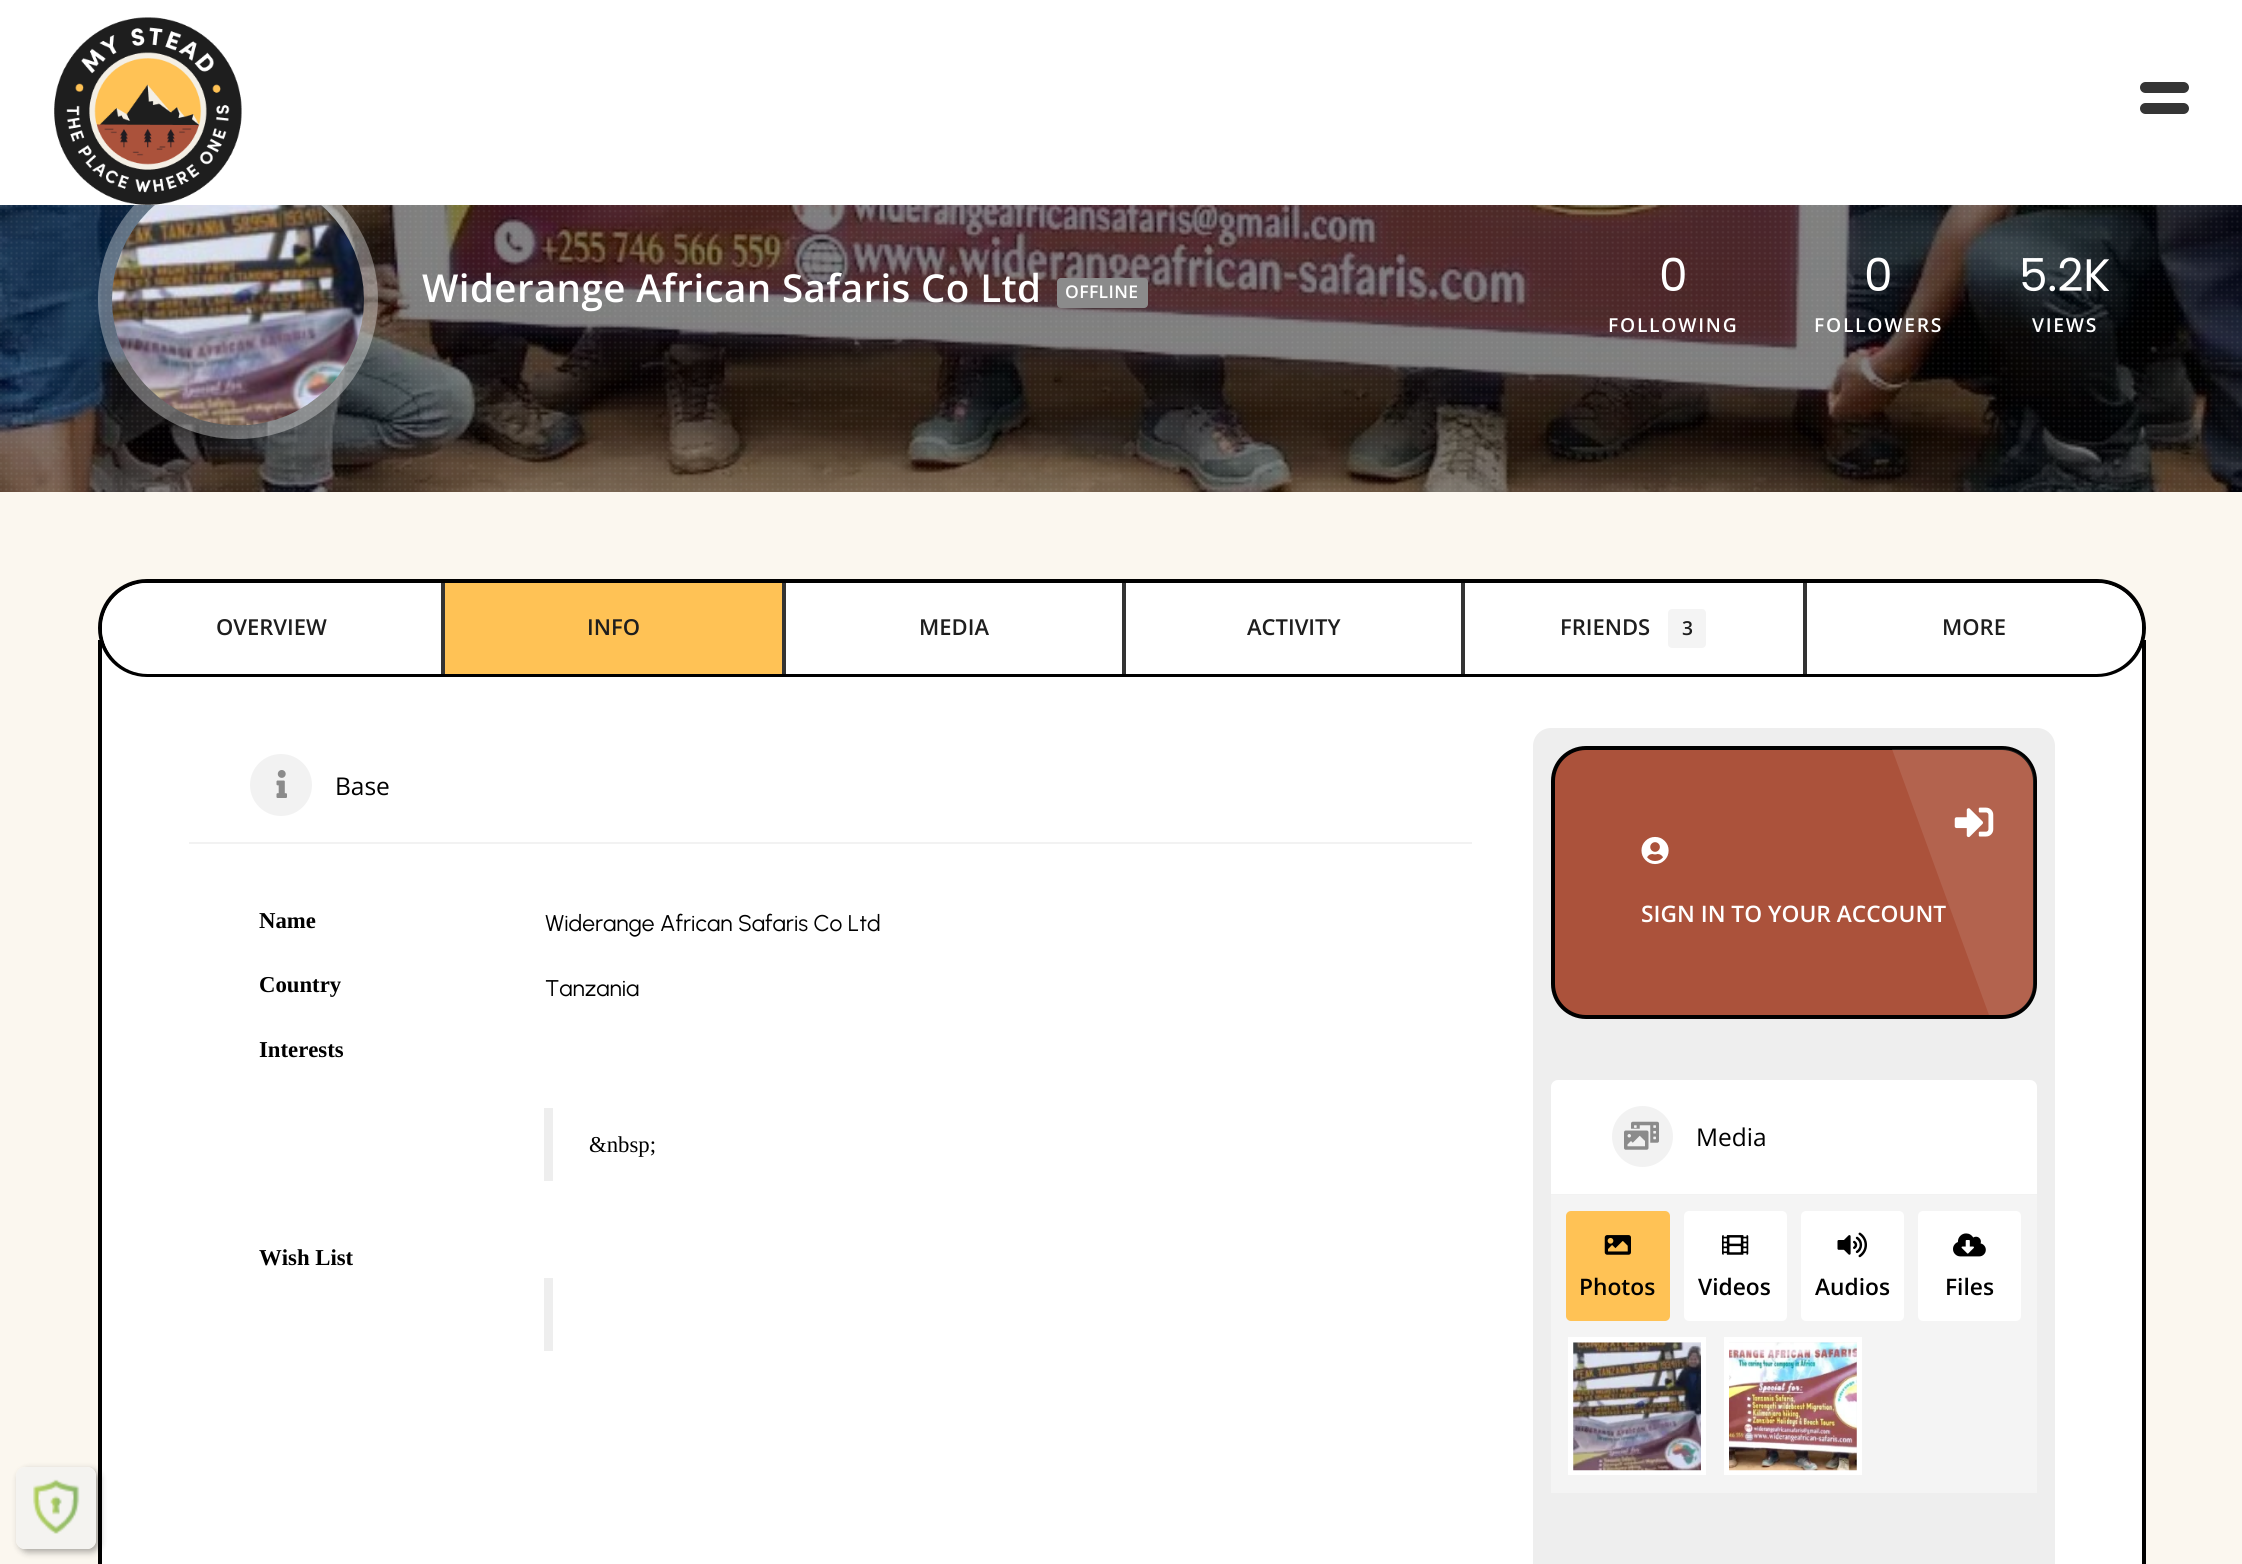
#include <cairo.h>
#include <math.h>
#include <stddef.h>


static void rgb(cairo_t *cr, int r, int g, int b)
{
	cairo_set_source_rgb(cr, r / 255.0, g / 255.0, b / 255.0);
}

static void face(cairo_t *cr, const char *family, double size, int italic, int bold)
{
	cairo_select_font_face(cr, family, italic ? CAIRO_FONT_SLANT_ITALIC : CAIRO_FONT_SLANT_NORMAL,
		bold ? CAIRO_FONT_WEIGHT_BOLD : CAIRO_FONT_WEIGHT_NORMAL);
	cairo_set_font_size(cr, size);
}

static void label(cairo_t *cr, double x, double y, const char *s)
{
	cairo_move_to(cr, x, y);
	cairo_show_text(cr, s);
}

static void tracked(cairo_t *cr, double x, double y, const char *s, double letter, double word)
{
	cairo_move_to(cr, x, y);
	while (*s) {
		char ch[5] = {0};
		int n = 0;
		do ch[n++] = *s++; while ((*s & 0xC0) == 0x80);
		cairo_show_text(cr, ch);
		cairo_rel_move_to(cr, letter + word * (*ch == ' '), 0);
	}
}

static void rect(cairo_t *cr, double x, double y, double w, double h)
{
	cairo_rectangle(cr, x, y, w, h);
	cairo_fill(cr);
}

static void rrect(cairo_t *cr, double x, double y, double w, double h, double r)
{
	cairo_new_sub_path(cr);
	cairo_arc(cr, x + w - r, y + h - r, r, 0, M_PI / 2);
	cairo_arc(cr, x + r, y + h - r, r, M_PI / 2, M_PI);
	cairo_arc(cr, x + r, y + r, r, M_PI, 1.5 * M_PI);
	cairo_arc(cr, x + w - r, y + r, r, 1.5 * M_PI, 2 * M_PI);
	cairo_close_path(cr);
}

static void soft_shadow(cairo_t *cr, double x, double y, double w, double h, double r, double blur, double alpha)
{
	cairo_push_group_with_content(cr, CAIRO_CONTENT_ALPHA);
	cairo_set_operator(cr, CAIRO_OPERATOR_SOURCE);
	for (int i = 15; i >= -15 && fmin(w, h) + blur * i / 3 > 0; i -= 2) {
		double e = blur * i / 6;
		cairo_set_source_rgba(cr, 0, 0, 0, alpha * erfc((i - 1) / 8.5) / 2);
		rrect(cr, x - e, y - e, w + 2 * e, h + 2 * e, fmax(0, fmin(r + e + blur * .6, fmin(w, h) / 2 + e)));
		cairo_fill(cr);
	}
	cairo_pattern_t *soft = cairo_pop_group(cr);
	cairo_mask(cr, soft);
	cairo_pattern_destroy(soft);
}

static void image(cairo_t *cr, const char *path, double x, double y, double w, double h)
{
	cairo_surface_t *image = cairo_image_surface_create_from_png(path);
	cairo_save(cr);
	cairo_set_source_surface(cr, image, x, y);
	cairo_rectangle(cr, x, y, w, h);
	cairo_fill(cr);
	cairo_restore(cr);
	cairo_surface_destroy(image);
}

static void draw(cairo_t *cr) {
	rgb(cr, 251, 247, 239);
	cairo_paint(cr);
	image(cr, "image1.png", 0, 205, 2242, 287);
	image(cr, "image2.png", 0, 205, 2242, 286);
	cairo_set_source_rgba(cr, 1, 1, 1, 0.35);
	cairo_arc(cr, 238, 299, 140, 0, 2 * M_PI);
	cairo_fill(cr);
	rgb(cr, 255, 255, 255);
	rect(cr, 0, 0, 2242, 205);
	image(cr, "image0.png", 54, 17, 188, 188);
	rgb(cr, 53, 53, 53);
	rrect(cr, 2140, 82, 49, 11, 5.5);
	cairo_fill(cr);
	rrect(cr, 2140, 103, 49, 11, 5.5);
	cairo_fill(cr);
	image(cr, "image3.png", 112, 205, 252, 221);
	face(cr, "Open Sans SemiBold", 38.5, 0, 0);
	rgb(cr, 255, 255, 255);
	tracked(cr, 422, 302, "Widerange African Safaris Co Ltd", 0.4, 0);
	rgb(cr, 139, 139, 139);
	rrect(cr, 1057, 278, 91, 30, 4);
	cairo_fill(cr);
	face(cr, "Open Sans SemiBold", 17.5, 0, 0);
	rgb(cr, 255, 255, 255);
	tracked(cr, 1065, 298, "OFFLINE", 0.4, 0);
	face(cr, "Poppins", 45.5, 0, 0);
	label(cr, 1659, 291, "0");
	face(cr, "Open Sans SemiBold", 19.25, 0, 0);
	tracked(cr, 1608, 332, "FOLLOWING", 1.75, 0);
	face(cr, "Poppins", 45.5, 0, 0);
	label(cr, 1864, 291, "0");
	face(cr, "Open Sans SemiBold", 19.25, 0, 0);
	tracked(cr, 1814, 332, "FOLLOWERS", 1.75, 0);
	face(cr, "Poppins", 45.5, 0, 0);
	label(cr, 2019, 291, "5.2K");
	face(cr, "Open Sans SemiBold", 19.25, 0, 0);
	tracked(cr, 2032, 332, "VIEWS", 1.75, 0);
	rect(cr, 102, 641, 2040, 923);
	rgb(cr, 0, 0, 0);
	cairo_set_fill_rule(cr, CAIRO_FILL_RULE_EVEN_ODD);
	cairo_new_path(cr);
	cairo_move_to(cr, 98, 640);
	cairo_line_to(cr, 2146, 640);
	cairo_line_to(cr, 2146, 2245);
	cairo_curve_to(cr, 2146, 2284, 2114, 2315, 2076, 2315);
	cairo_line_to(cr, 168, 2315);
	cairo_curve_to(cr, 129, 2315, 98, 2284, 98, 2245);
	cairo_close_path(cr);
	cairo_move_to(cr, 102, 640);
	cairo_line_to(cr, 2142, 640);
	cairo_line_to(cr, 2142, 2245);
	cairo_curve_to(cr, 2142, 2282, 2112, 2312, 2076, 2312);
	cairo_line_to(cr, 168, 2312);
	cairo_curve_to(cr, 131, 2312, 102, 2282, 102, 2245);
	cairo_close_path(cr);
	cairo_fill(cr);
	rrect(cr, 100, 581, 2044, 94, 47);
	cairo_set_line_width(cr, 4);
	cairo_stroke(cr);
	rgb(cr, 255, 255, 255);
	cairo_new_path(cr);
	cairo_move_to(cr, 147.5, 583);
	cairo_line_to(cr, 441, 583);
	cairo_line_to(cr, 441, 674);
	cairo_line_to(cr, 147.5, 674);
	cairo_curve_to(cr, 122.5, 674, 102, 653.5, 102, 628.5);
	cairo_curve_to(cr, 102, 603.5, 122.5, 583, 147.5, 583);
	cairo_close_path(cr);
	cairo_fill(cr);
	face(cr, "Open Sans SemiBold", 22, 0, 0);
	rgb(cr, 30, 30, 30);
	label(cr, 216, 635, "OVERVIEW");
	rgb(cr, 51, 51, 51);
	rect(cr, 441, 583, 4, 91);
	rgb(cr, 255, 194, 85);
	rect(cr, 445, 583, 337, 91);
	rgb(cr, 30, 30, 30);
	label(cr, 587, 635, "INFO");
	rgb(cr, 255, 255, 255);
	rect(cr, 786, 583, 336, 91);
	rgb(cr, 51, 51, 51);
	rect(cr, 782, 583, 4, 91);
	rgb(cr, 30, 30, 30);
	label(cr, 919, 635, "MEDIA");
	rgb(cr, 255, 255, 255);
	rect(cr, 1126, 583, 335, 91);
	rgb(cr, 51, 51, 51);
	rect(cr, 1122, 583, 4, 91);
	rgb(cr, 30, 30, 30);
	label(cr, 1247, 635, "ACTIVITY");
	rgb(cr, 255, 255, 255);
	rect(cr, 1465, 583, 338, 91);
	rgb(cr, 51, 51, 51);
	rect(cr, 1461, 583, 4, 91);
	rgb(cr, 30, 30, 30);
	label(cr, 1560, 635, "FRIENDS");
	rgb(cr, 244, 244, 244);
	rrect(cr, 1668, 609, 38, 39, 4);
	cairo_fill(cr);
	face(cr, "Open Sans SemiBold", 19.25, 0, 0);
	rgb(cr, 30, 30, 30);
	label(cr, 1682, 635, "3");
	rgb(cr, 255, 255, 255);
	cairo_new_path(cr);
	cairo_move_to(cr, 1803, 583);
	cairo_line_to(cr, 2096.5, 583);
	cairo_curve_to(cr, 2121.5, 583, 2142, 603.5, 2142, 628.5);
	cairo_curve_to(cr, 2142, 653.5, 2121.5, 674, 2096.5, 674);
	cairo_line_to(cr, 1803, 674);
	cairo_close_path(cr);
	cairo_fill(cr);
	rgb(cr, 51, 51, 51);
	rect(cr, 1803, 583, 4, 91);
	face(cr, "Open Sans SemiBold", 22, 0, 0);
	rgb(cr, 30, 30, 30);
	label(cr, 1942, 635, "MORE");
	rgb(cr, 242, 242, 242);
	rect(cr, 189, 842, 1283, 2);
	cairo_new_path(cr);
	cairo_arc(cr, 281, 785, 31, 0, 2 * M_PI);
	cairo_fill(cr);
	image(cr, "image4.png", 276, 770, 11, 28);
	face(cr, "Open Sans", 24.5, 0, 0);
	rgb(cr, 0, 0, 0);
	label(cr, 335, 795, "Base");
	face(cr, "Liberation Serif", 22.75, 0, 1);
	label(cr, 259, 928, "Name");
	face(cr, "Urbanist", 22.75, 0, 0);
	label(cr, 545, 931, "Widerange African Safaris Co Ltd");
	face(cr, "Liberation Serif", 22.75, 0, 1);
	label(cr, 259, 992, "Country");
	face(cr, "Urbanist", 22.75, 0, 0);
	label(cr, 545, 996, "Tanzania");
	face(cr, "Liberation Serif", 22.75, 0, 1);
	label(cr, 259, 1057, "Interests");
	rgb(cr, 238, 238, 238);
	rect(cr, 544, 1108, 9, 73);
	face(cr, "Liberation Serif", 22.75, 0, 0);
	rgb(cr, 0, 0, 0);
	label(cr, 589, 1152, "&nbsp;");
	face(cr, "Liberation Serif", 22.75, 0, 1);
	label(cr, 259, 1265, "Wish List");
	rgb(cr, 238, 238, 238);
	rect(cr, 544, 1278, 9, 73);
	rrect(cr, 1533, 728, 522, 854, 18);
	cairo_fill(cr);
	rgb(cr, 171, 82, 59);
	rrect(cr, 1553, 748, 482, 269, 33);
	cairo_fill_preserve(cr);
	rgb(cr, 0, 0, 0);
	cairo_stroke(cr);
	cairo_set_source_rgba(cr, 1, 1, 1, 0.1);
	cairo_set_fill_rule(cr, CAIRO_FILL_RULE_WINDING);
	cairo_new_path(cr);
	cairo_move_to(cr, 1989, 1015);
	cairo_line_to(cr, 1892, 749);
	cairo_line_to(cr, 2002, 749);
	cairo_curve_to(cr, 2020, 749, 2034, 763, 2034, 781);
	cairo_line_to(cr, 2034, 983);
	cairo_curve_to(cr, 2034, 1001, 2020, 1015, 2002, 1015);
	cairo_close_path(cr);
	cairo_fill(cr);
	image(cr, "image5.png", 1954, 807, 40, 31);
	image(cr, "image6.png", 1641, 836, 28, 29);
	face(cr, "Open Sans SemiBold", 22.75, 0, 0);
	rgb(cr, 255, 255, 255);
	label(cr, 1641, 922, "SIGN IN TO YOUR ACCOUNT");
	rrect(cr, 1551, 1080, 486, 413, 7);
	cairo_fill(cr);
	rgb(cr, 242, 242, 242);
	rect(cr, 1551, 1194, 486, 1);
	cairo_arc(cr, 1642.5, 1136.5, 30.5, 0, 2 * M_PI);
	cairo_fill(cr);
	image(cr, "image7.png", 1624, 1121, 35, 29);
	face(cr, "Open Sans", 24.5, 0, 0);
	rgb(cr, 0, 0, 0);
	label(cr, 1696, 1146, "Media");
	rgb(cr, 244, 244, 244);
	rect(cr, 1551, 1195, 486, 298);
	rgb(cr, 255, 194, 85);
	rrect(cr, 1566, 1211, 104, 110, 5);
	cairo_fill(cr);
	image(cr, "image8.png", 1604, 1235, 27, 20);
	face(cr, "Open Sans SemiBold", 22.75, 0, 0);
	rgb(cr, 0, 0, 0);
	label(cr, 1579, 1295, "Photos");
	rgb(cr, 255, 255, 255);
	rrect(cr, 1684, 1211, 103, 110, 5);
	cairo_fill(cr);
	image(cr, "image9.png", 1722, 1235, 27, 20);
	rgb(cr, 0, 0, 0);
	label(cr, 1698, 1295, "Videos");
	rgb(cr, 255, 255, 255);
	rrect(cr, 1801, 1211, 103, 110, 5);
	cairo_fill(cr);
	image(cr, "image10.png", 1837, 1232, 30, 26);
	rgb(cr, 0, 0, 0);
	label(cr, 1815, 1295, "Audios");
	rgb(cr, 255, 255, 255);
	rrect(cr, 1918, 1211, 103, 110, 5);
	cairo_fill(cr);
	image(cr, "image11.png", 1953, 1233, 33, 24);
	rgb(cr, 0, 0, 0);
	label(cr, 1945, 1295, "Files");
	cairo_rectangle(cr, 1570.5, 1339.5, 133, 133);
	rgb(cr, 255, 255, 255);
	cairo_set_line_width(cr, 5);
	cairo_stroke(cr);
	image(cr, "image12.png", 1573, 1342, 128, 129);
	cairo_rectangle(cr, 1726.5, 1339.5, 133, 133);
	cairo_stroke(cr);
	image(cr, "image13.png", 1729, 1342, 128, 129);
	cairo_save(cr);
	cairo_set_fill_rule(cr, CAIRO_FILL_RULE_EVEN_ODD);
	cairo_new_path(cr);
	cairo_move_to(cr, 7, 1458);
	cairo_line_to(cr, 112, 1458);
	cairo_line_to(cr, 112, 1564);
	cairo_line_to(cr, 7, 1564);
	cairo_close_path(cr);
	cairo_move_to(cr, 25, 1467);
	cairo_line_to(cr, 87, 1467);
	cairo_curve_to(cr, 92, 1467, 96, 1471, 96, 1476);
	cairo_line_to(cr, 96, 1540);
	cairo_curve_to(cr, 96, 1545, 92, 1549, 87, 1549);
	cairo_line_to(cr, 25, 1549);
	cairo_curve_to(cr, 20, 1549, 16, 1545, 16, 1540);
	cairo_line_to(cr, 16, 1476);
	cairo_curve_to(cr, 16, 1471, 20, 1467, 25, 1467);
	cairo_close_path(cr);
	cairo_clip(cr);
	rgb(cr, 0, 0, 0);
	soft_shadow(cr, 19, 1470, 81, 82, 9, 3.5, 0.33);
	cairo_restore(cr);
	cairo_set_source_rgba(cr, 0.957, 0.953, 0.941, 0.99);
	rrect(cr, 16, 1467, 80, 82, 9);
	cairo_fill(cr);
	image(cr, "image14.png", 33, 1479, 47, 55);
}

int main(void) {
	cairo_surface_t *surface = cairo_image_surface_create(CAIRO_FORMAT_RGB24, 2242, 1564);
	cairo_t *cr = cairo_create(surface);
	cairo_font_options_t *options = cairo_font_options_create();
	cairo_font_options_set_hint_metrics(options, CAIRO_HINT_METRICS_OFF);
	cairo_font_options_set_hint_style(options, CAIRO_HINT_STYLE_NONE);
	cairo_set_font_options(cr, options);
	cairo_set_miter_limit(cr, 4);
	draw(cr);
	cairo_surface_write_to_png(surface, "render.png");
	cairo_font_options_destroy(options);
	cairo_destroy(cr);
	cairo_surface_destroy(surface);
	return 0;
}
